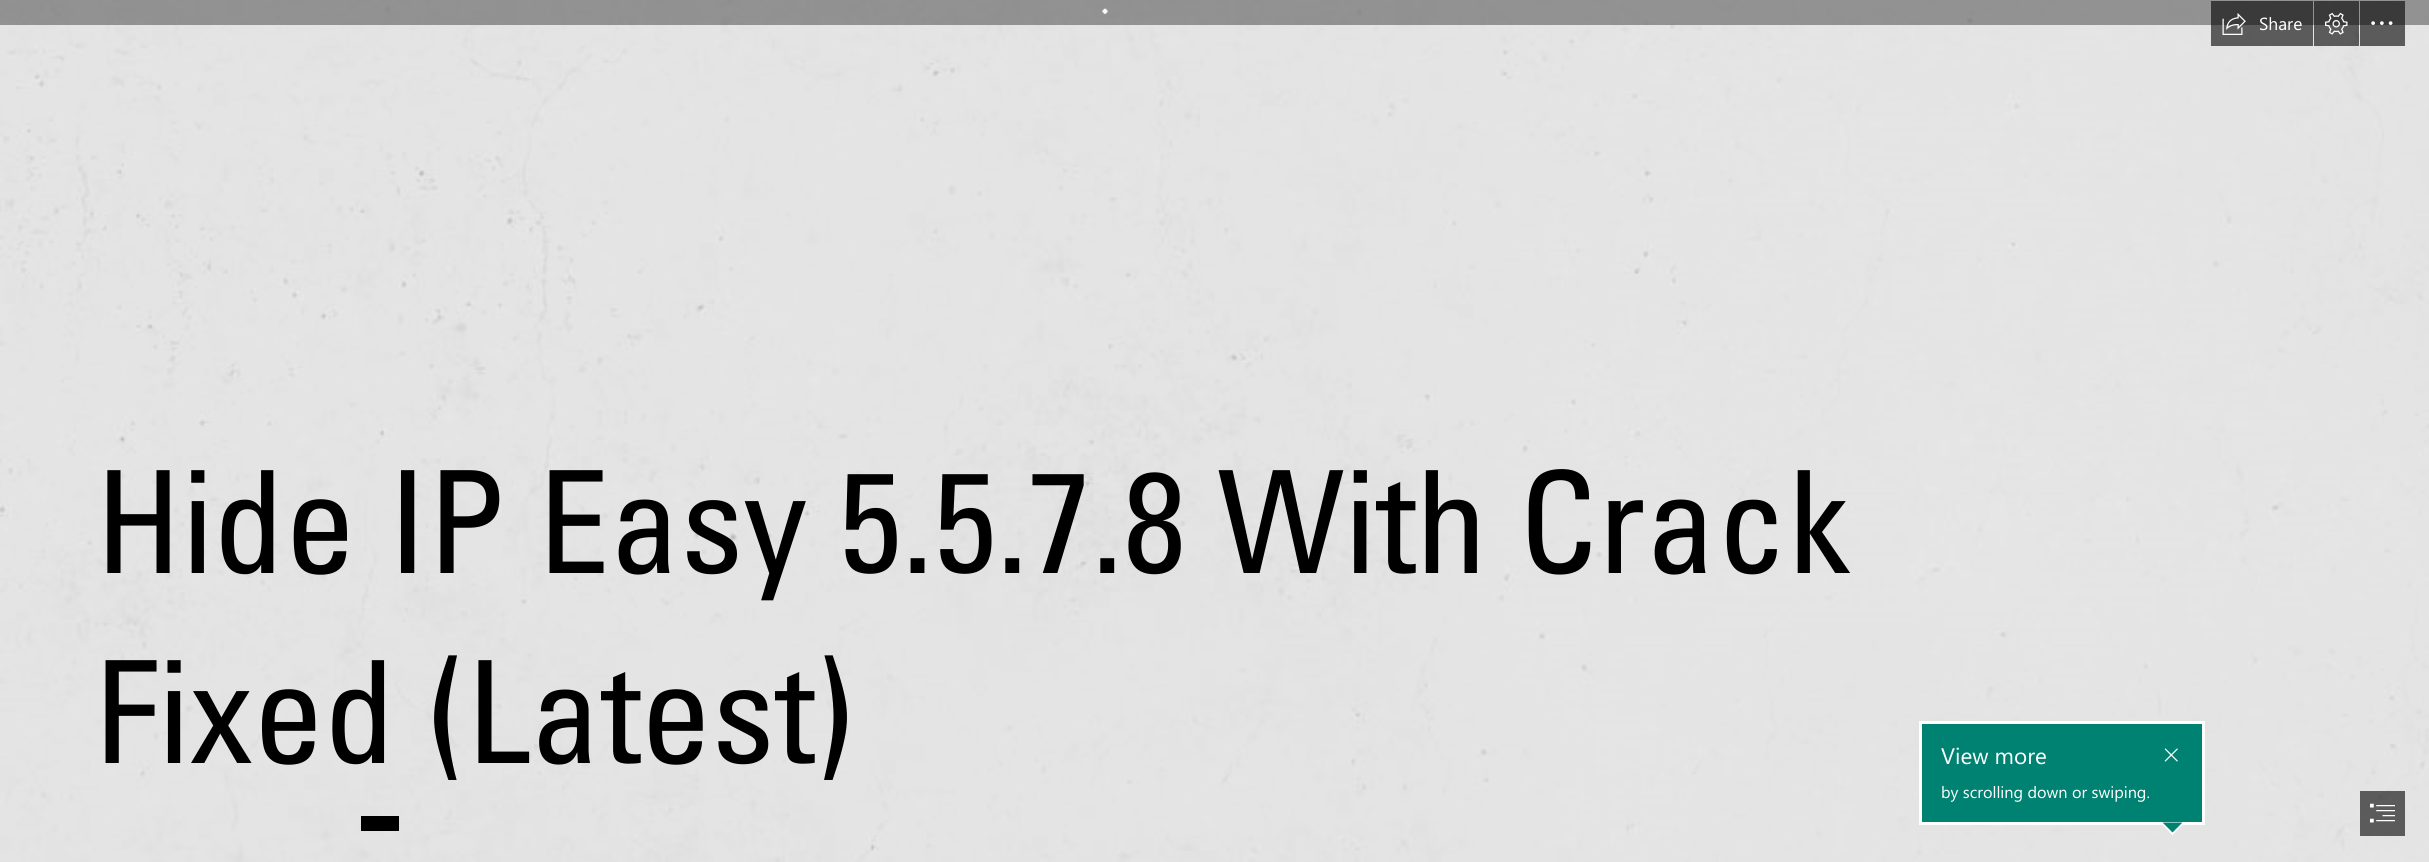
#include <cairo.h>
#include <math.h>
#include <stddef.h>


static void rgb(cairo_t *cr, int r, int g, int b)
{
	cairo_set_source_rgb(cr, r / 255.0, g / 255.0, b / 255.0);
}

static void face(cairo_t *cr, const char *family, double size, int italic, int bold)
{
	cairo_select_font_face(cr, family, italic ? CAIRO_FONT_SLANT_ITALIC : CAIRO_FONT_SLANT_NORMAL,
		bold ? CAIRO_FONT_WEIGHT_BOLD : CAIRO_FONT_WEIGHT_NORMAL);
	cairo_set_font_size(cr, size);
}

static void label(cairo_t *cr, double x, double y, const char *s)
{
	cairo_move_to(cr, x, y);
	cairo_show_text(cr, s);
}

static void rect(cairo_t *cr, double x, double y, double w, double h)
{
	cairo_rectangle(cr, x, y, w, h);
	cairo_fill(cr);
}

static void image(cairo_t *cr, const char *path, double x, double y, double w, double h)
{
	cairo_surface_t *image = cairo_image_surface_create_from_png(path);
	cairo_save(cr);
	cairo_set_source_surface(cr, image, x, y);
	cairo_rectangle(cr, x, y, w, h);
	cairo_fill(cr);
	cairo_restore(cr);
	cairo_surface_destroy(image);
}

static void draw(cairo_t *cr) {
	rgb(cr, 234, 234, 234);
	cairo_paint(cr);
	image(cr, "image4.png", 0, 0, 2429, 862);
	cairo_set_source_rgba(cr, 0.251, 0.251, 0.251, 0.5);
	rect(cr, 0, 0, 2429, 25);
	cairo_set_source_rgba(cr, 0, 0, 0, 0.6);
	rect(cr, 2211, 1, 102, 45);
	image(cr, "image0.png", 2222, 13, 24, 22);
	face(cr, "Segoe UI", 17.5, 0, 0);
	rgb(cr, 255, 255, 255);
	label(cr, 2259, 30, "Share");
	cairo_set_source_rgba(cr, 0, 0, 0, 0.6);
	rect(cr, 2314, 1, 45, 45);
	image(cr, "image1.png", 2325, 12, 23, 23);
	rect(cr, 2360, 1, 45, 45);
	image(cr, "image2.png", 2371, 21, 22, 4);
	image(cr, "image3.png", 1102, 8, 6, 6);
	face(cr, "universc", 142.4, 0, 0);
	rgb(cr, 0, 0, 0);
	label(cr, 95, 573, "Hide IP Easy 5.5.7.8 With Crack");
	label(cr, 95, 763, "Fixed (Latest)");
	rect(cr, 361, 816, 38, 15);
	rgb(cr, 0, 130, 114);
	cairo_rectangle(cr, 1920.5, 722.5, 283, 101);
	cairo_fill_preserve(cr);
	rgb(cr, 255, 255, 255);
	cairo_set_line_width(cr, 3);
	cairo_stroke(cr);
	face(cr, "Segoe UI", 22.5, 0, 0);
	label(cr, 1941, 764, "View more");
	face(cr, "Segoe UI", 16.25, 0, 0);
	label(cr, 1941, 798, "by scrolling down or swiping.");
	image(cr, "image5.png", 2164, 748, 14, 14);
	cairo_new_path(cr);
	cairo_move_to(cr, 2160, 822.5);
	cairo_line_to(cr, 2185, 822.5);
	cairo_line_to(cr, 2172.5, 835);
	cairo_close_path(cr);
	cairo_fill(cr);
	rgb(cr, 0, 130, 114);
	cairo_new_path(cr);
	cairo_move_to(cr, 2162.5, 822.5);
	cairo_line_to(cr, 2182.5, 822.5);
	cairo_line_to(cr, 2172.5, 832.5);
	cairo_close_path(cr);
	cairo_fill(cr);
	cairo_set_source_rgba(cr, 0, 0, 0, 0.6);
	rect(cr, 2360, 791, 45, 45);
	image(cr, "image6.png", 2370, 803, 25, 20);
}

int main(void) {
	cairo_surface_t *surface = cairo_image_surface_create(CAIRO_FORMAT_RGB24, 2429, 862);
	cairo_t *cr = cairo_create(surface);
	cairo_font_options_t *options = cairo_font_options_create();
	cairo_font_options_set_hint_metrics(options, CAIRO_HINT_METRICS_OFF);
	cairo_font_options_set_hint_style(options, CAIRO_HINT_STYLE_NONE);
	cairo_set_font_options(cr, options);
	cairo_set_miter_limit(cr, 4);
	draw(cr);
	cairo_surface_write_to_png(surface, "render.png");
	cairo_font_options_destroy(options);
	cairo_destroy(cr);
	cairo_surface_destroy(surface);
	return 0;
}
